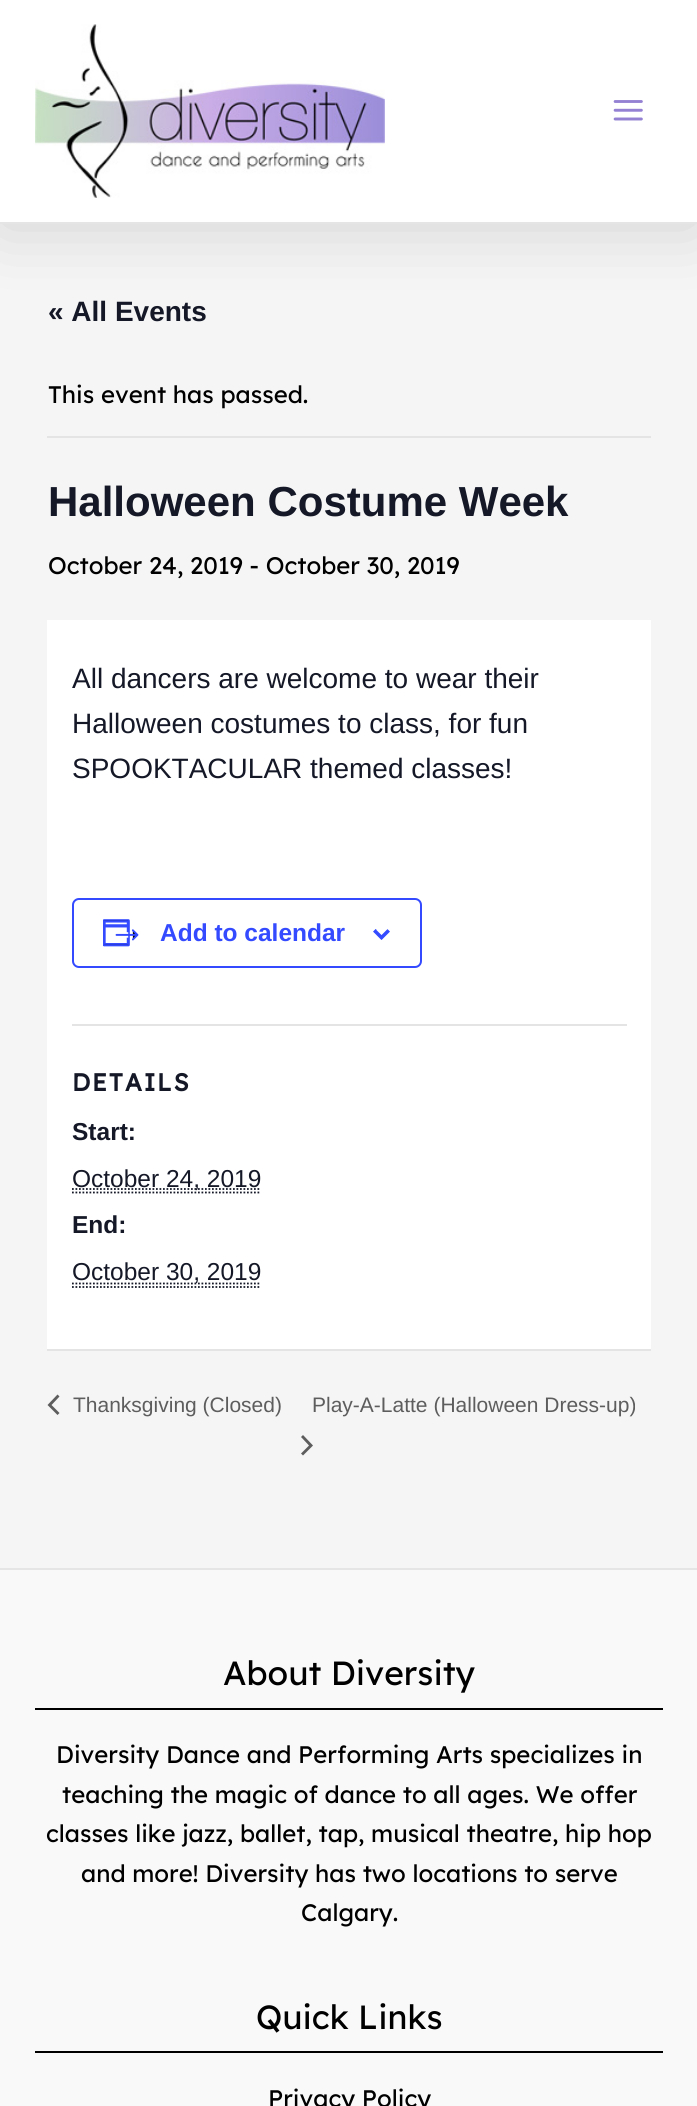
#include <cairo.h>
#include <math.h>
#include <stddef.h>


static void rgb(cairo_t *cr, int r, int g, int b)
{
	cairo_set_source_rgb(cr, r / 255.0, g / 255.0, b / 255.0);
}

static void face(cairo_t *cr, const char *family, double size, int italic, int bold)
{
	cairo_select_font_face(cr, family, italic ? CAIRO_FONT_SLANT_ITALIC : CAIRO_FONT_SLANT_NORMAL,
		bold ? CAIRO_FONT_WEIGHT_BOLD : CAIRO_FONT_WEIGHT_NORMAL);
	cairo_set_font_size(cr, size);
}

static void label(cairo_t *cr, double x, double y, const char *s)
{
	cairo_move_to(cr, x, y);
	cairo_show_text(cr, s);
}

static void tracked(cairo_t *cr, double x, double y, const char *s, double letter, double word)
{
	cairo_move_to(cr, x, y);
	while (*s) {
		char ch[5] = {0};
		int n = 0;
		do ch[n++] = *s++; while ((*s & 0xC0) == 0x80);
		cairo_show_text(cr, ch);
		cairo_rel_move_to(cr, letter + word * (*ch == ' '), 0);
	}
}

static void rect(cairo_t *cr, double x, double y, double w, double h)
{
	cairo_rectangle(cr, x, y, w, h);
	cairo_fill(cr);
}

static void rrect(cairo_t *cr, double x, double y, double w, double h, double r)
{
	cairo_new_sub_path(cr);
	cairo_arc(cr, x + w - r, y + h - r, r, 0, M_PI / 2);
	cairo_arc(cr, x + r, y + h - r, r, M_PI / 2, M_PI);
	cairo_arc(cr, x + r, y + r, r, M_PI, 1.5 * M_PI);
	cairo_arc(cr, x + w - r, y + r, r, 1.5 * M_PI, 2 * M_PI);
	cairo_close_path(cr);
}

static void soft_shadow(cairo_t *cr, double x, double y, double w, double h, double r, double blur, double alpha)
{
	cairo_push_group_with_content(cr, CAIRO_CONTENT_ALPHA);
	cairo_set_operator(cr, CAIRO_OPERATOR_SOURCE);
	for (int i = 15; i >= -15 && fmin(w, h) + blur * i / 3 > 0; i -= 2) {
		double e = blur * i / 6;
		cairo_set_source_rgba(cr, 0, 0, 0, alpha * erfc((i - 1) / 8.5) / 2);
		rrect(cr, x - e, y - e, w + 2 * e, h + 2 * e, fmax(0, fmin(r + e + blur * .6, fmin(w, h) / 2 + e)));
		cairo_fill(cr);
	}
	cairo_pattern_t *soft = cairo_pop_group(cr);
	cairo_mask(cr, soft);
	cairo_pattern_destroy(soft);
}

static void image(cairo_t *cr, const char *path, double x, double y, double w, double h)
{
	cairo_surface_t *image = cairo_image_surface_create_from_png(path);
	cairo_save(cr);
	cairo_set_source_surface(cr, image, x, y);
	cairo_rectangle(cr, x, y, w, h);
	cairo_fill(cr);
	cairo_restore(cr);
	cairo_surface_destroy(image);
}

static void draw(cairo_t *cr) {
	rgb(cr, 245, 245, 245);
	cairo_paint(cr);
	rgb(cr, 0, 0, 0);
	soft_shadow(cr, 0, 2, 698, 224, 0, 35, 0.15);
	rgb(cr, 255, 255, 255);
	rect(cr, 0, 0, 697, 222);
	rgb(cr, 229, 229, 229);
	rect(cr, 0, 222, 697, 2);
	image(cr, "image0.png", 35, 24, 350, 174);
	image(cr, "image1.png", 613, 100, 30, 21);
	face(cr, "Liberation Sans", 28, 0, 1);
	rgb(cr, 20, 24, 39);
	label(cr, 48, 321, "« All Events");
	rgb(cr, 228, 228, 228);
	rect(cr, 47, 436, 604, 2);
	face(cr, "Lexend", 23.95, 0, 0);
	rgb(cr, 0, 0, 0);
	label(cr, 48, 403, "This event has passed.");
	face(cr, "Liberation Sans", 42, 0, 1);
	rgb(cr, 20, 24, 39);
	label(cr, 48, 516, "Halloween Costume Week");
	face(cr, "Lexend", 23.95, 0, 0);
	rgb(cr, 0, 0, 0);
	label(cr, 48, 574, "October 24, 2019 - October 30, 2019");
	rgb(cr, 255, 255, 255);
	rect(cr, 47, 620, 604, 729);
	face(cr, "Liberation Sans", 28, 0, 0);
	rgb(cr, 20, 24, 39);
	label(cr, 72, 688, "All dancers are welcome to wear their");
	label(cr, 72, 733, "Halloween costumes to class, for fun");
	label(cr, 72, 778, "SPOOKTACULAR themed classes!");
	rrect(cr, 73, 899, 348, 68, 6);
	rgb(cr, 51, 74, 255);
	cairo_stroke(cr);
	image(cr, "image2.png", 103, 919, 36, 28);
	face(cr, "Liberation Sans", 24.5, 0, 1);
	label(cr, 160, 941, "Add to calendar");
	image(cr, "image3.png", 373, 929, 17, 11);
	rgb(cr, 228, 228, 228);
	rect(cr, 72, 1024, 555, 2);
	face(cr, "Lexend", 24.5, 0, 1);
	rgb(cr, 20, 24, 39);
	tracked(cr, 72, 1091, "DETAILS", 1.75, 0);
	face(cr, "Liberation Sans", 24.5, 0, 1);
	label(cr, 72, 1140, "Start:");
	cairo_new_path(cr);
	cairo_move_to(cr, 72, 1189);
	cairo_line_to(cr, 261, 1189);
	cairo_set_line_width(cr, 1.8);
	cairo_set_dash(cr, (double[]){1.75, 1.75}, 2, 0);
	cairo_stroke(cr);
	face(cr, "Liberation Sans", 24.5, 0, 0);
	label(cr, 72, 1187, "October 24, 2019");
	cairo_new_path(cr);
	cairo_move_to(cr, 72, 1192.5);
	cairo_line_to(cr, 261, 1192.5);
	cairo_stroke(cr);
	face(cr, "Liberation Sans", 24.5, 0, 1);
	label(cr, 72, 1233, "End:");
	cairo_new_path(cr);
	cairo_move_to(cr, 72, 1283.5);
	cairo_line_to(cr, 261, 1283.5);
	cairo_stroke(cr);
	face(cr, "Liberation Sans", 24.5, 0, 0);
	label(cr, 72, 1280, "October 30, 2019");
	cairo_new_path(cr);
	cairo_move_to(cr, 72, 1287);
	cairo_line_to(cr, 261, 1287);
	cairo_stroke(cr);
	rgb(cr, 228, 228, 228);
	rect(cr, 47, 1349, 604, 2);
	rgb(cr, 93, 93, 93);
	cairo_new_path(cr);
	cairo_move_to(cr, 59.5, 1413);
	cairo_line_to(cr, 57.5, 1415);
	cairo_line_to(cr, 47.5, 1405);
	cairo_line_to(cr, 57.5, 1394.5);
	cairo_line_to(cr, 59.5, 1396.5);
	cairo_line_to(cr, 51.5, 1405);
	cairo_close_path(cr);
	cairo_fill(cr);
	face(cr, "Liberation Sans", 21, 0, 0);
	label(cr, 73, 1412, "Thanksgiving (Closed)");
	label(cr, 312, 1412, "Play-A-Latte (Halloween Dress-up)");
	cairo_new_path(cr);
	cairo_move_to(cr, 301, 1437);
	cairo_line_to(cr, 303, 1435);
	cairo_line_to(cr, 313, 1445.5);
	cairo_line_to(cr, 303, 1455.5);
	cairo_line_to(cr, 301, 1453.5);
	cairo_line_to(cr, 309, 1445.5);
	cairo_close_path(cr);
	cairo_fill(cr);
	rgb(cr, 249, 249, 249);
	rect(cr, 0, 1570, 697, 536);
	rgb(cr, 229, 229, 229);
	rect(cr, 0, 1568, 697, 2);
	rgb(cr, 0, 0, 0);
	rect(cr, 35, 1708, 628, 2);
	face(cr, "Lexend", 33.5, 0, 0);
	label(cr, 223, 1685, "About Diversity");
	face(cr, "Lexend", 23.95, 0, 0);
	label(cr, 56, 1763, "Diversity Dance and Performing Arts specializes in");
	label(cr, 62, 1803, "teaching the magic of dance to all ages. We offer");
	label(cr, 46, 1842, "classes like jazz, ballet, tap, musical theatre, hip hop");
	label(cr, 81, 1882, "and more! Diversity has two locations to serve");
	label(cr, 301, 1921, "Calgary.");
	rect(cr, 35, 2051, 628, 2);
	face(cr, "Lexend", 33.5, 0, 0);
	label(cr, 256, 2029, "Quick Links");
	face(cr, "Lexend", 23.95, 0, 0);
	label(cr, 268, 2107, "Privacy Policy");
}

int main(void) {
	cairo_surface_t *surface = cairo_image_surface_create(CAIRO_FORMAT_RGB24, 697, 2106);
	cairo_t *cr = cairo_create(surface);
	cairo_font_options_t *options = cairo_font_options_create();
	cairo_font_options_set_hint_metrics(options, CAIRO_HINT_METRICS_OFF);
	cairo_font_options_set_hint_style(options, CAIRO_HINT_STYLE_NONE);
	cairo_set_font_options(cr, options);
	cairo_set_miter_limit(cr, 4);
	draw(cr);
	cairo_surface_write_to_png(surface, "render.png");
	cairo_font_options_destroy(options);
	cairo_destroy(cr);
	cairo_surface_destroy(surface);
	return 0;
}
